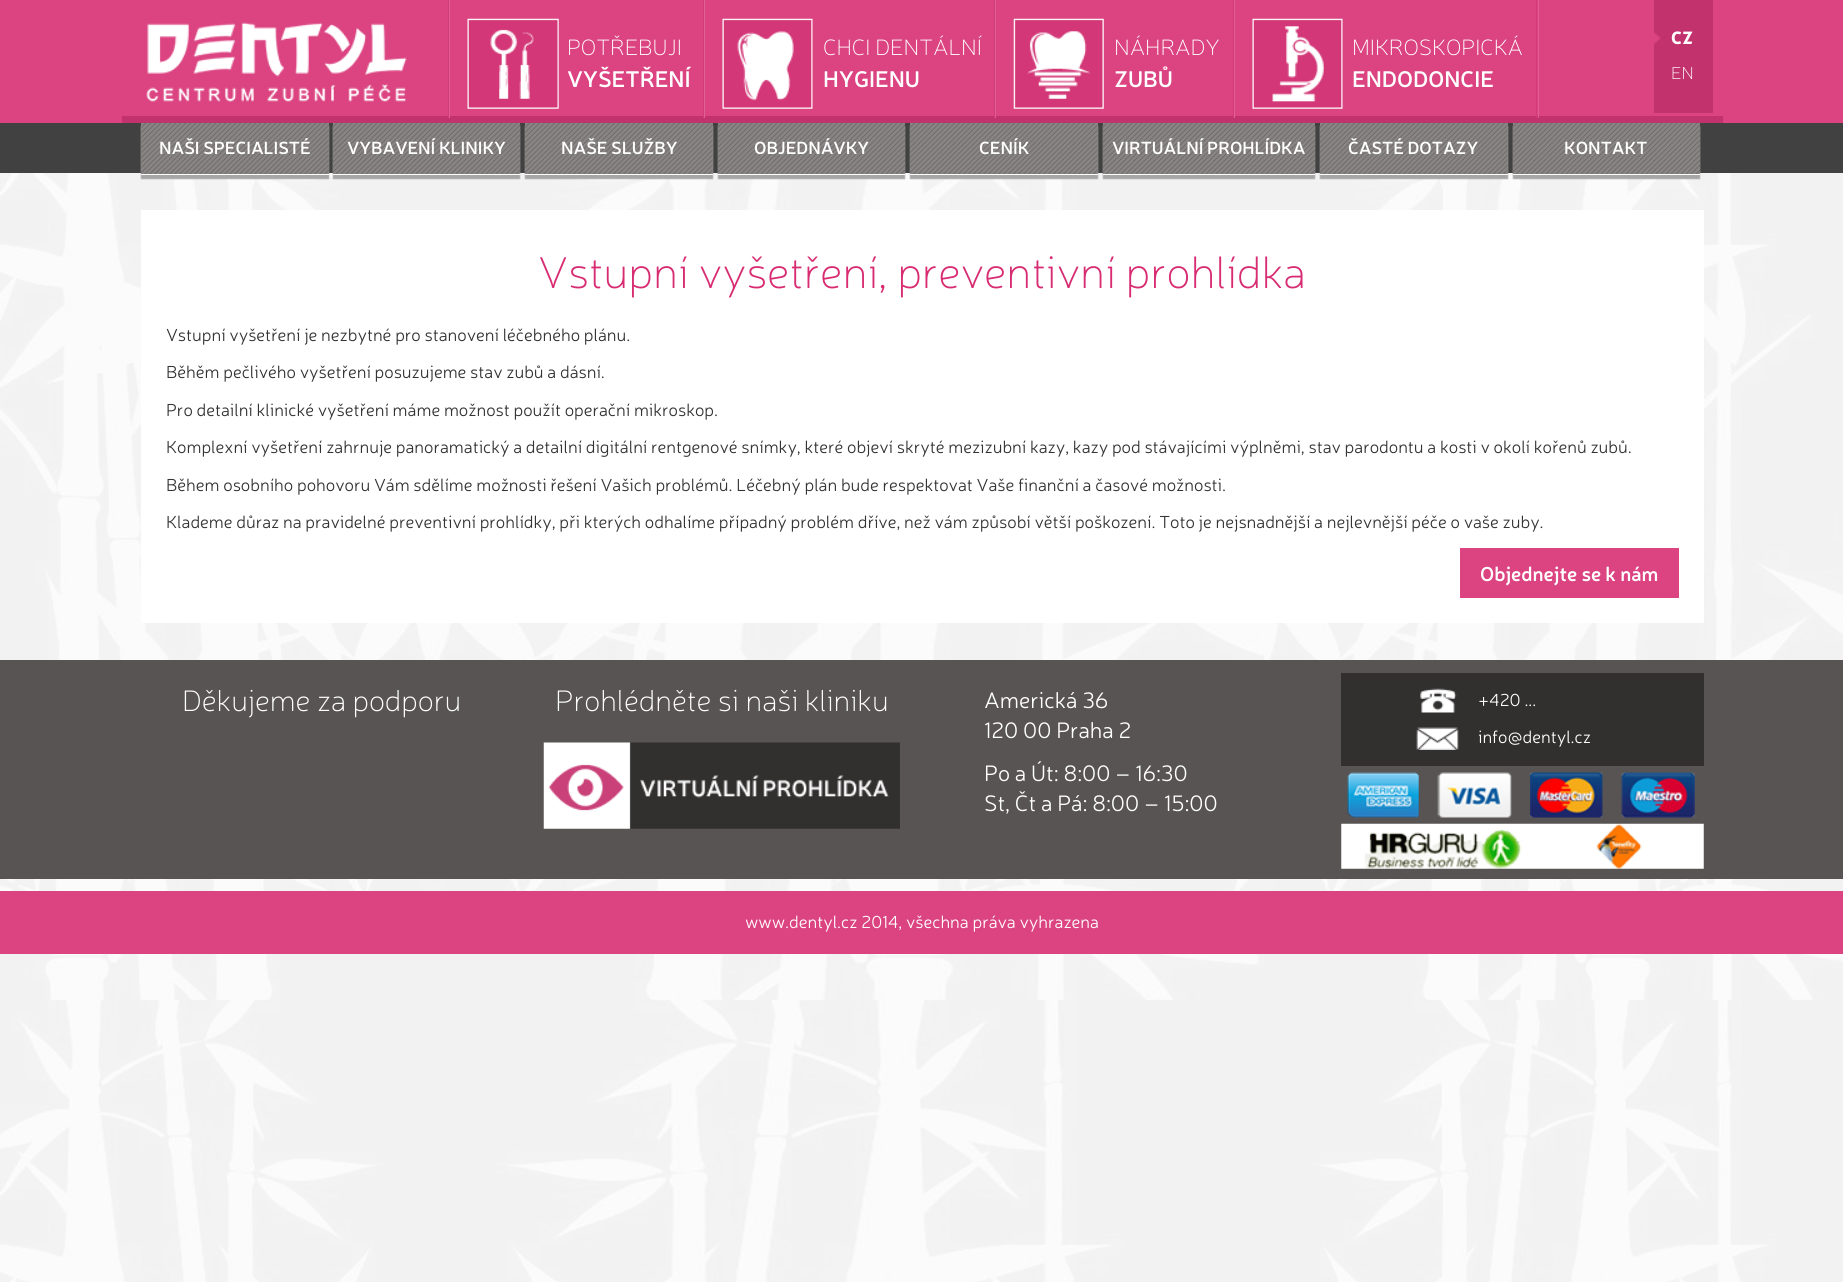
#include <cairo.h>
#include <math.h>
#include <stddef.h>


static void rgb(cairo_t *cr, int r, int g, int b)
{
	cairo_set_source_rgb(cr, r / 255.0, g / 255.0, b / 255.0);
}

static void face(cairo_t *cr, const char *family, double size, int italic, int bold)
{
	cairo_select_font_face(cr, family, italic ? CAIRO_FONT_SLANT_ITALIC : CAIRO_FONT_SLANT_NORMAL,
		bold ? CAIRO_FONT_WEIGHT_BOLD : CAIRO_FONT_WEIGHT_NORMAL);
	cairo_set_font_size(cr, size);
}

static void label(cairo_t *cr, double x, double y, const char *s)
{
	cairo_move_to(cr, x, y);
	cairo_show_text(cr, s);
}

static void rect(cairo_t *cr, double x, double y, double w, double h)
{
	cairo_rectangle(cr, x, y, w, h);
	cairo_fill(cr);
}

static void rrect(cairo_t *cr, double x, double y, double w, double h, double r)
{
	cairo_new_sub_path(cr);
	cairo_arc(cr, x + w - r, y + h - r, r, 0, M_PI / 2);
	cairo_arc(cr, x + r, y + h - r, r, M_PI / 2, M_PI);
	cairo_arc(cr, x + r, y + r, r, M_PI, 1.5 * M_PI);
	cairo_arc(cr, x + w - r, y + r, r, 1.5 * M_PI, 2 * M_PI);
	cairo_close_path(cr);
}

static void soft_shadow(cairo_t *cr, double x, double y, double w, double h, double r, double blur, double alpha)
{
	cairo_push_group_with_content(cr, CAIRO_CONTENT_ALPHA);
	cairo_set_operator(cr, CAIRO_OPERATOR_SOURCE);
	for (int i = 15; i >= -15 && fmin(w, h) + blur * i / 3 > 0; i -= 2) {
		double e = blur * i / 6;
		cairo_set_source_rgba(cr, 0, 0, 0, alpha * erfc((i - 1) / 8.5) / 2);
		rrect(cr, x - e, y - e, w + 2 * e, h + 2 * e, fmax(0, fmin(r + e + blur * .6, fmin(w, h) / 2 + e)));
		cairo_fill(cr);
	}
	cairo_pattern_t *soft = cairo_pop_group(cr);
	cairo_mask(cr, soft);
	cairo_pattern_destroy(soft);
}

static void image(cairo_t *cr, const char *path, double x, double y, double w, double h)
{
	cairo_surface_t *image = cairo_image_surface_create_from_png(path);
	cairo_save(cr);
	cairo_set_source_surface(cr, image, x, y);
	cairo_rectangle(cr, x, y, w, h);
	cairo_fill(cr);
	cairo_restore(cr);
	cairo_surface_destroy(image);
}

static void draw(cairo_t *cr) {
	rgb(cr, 255, 255, 255);
	cairo_paint(cr);
	image(cr, "image0.png", 0, 173, 1843, 1109);
	rgb(cr, 219, 67, 129);
	rect(cr, 0, 0, 1843, 123);
	rgb(cr, 194, 50, 109);
	rect(cr, 122, 116, 1601, 7);
	image(cr, "image1.png", 146, 22, 261, 80);
	rgb(cr, 225, 96, 148);
	rect(cr, 449, 0, 1, 118);
	rgb(cr, 211, 59, 119);
	rect(cr, 448, 0, 1, 118);
	image(cr, "image2.png", 467, 18, 92, 91);
	face(cr, "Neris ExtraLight", 22.5, 0, 0);
	rgb(cr, 255, 255, 255);
	label(cr, 567, 55, "POTŘEBUJI");
	face(cr, "Neris SemiBold", 22.5, 0, 0);
	label(cr, 567, 87, "VYŠETŘENÍ");
	rgb(cr, 225, 96, 148);
	rect(cr, 704, 0, 1, 118);
	rgb(cr, 211, 59, 119);
	rect(cr, 703, 0, 1, 118);
	image(cr, "image3.png", 722, 18, 91, 91);
	face(cr, "Neris ExtraLight", 22.5, 0, 0);
	rgb(cr, 255, 255, 255);
	label(cr, 823, 55, "CHCI DENTÁLNÍ");
	face(cr, "Neris SemiBold", 22.5, 0, 0);
	label(cr, 823, 87, "HYGIENU");
	rgb(cr, 225, 96, 148);
	rect(cr, 995, 0, 1, 118);
	rgb(cr, 211, 59, 119);
	rect(cr, 994, 0, 1, 118);
	image(cr, "image4.png", 1013, 18, 91, 91);
	face(cr, "Neris ExtraLight", 22.5, 0, 0);
	rgb(cr, 255, 255, 255);
	label(cr, 1114, 55, "NÁHRADY");
	face(cr, "Neris SemiBold", 22.5, 0, 0);
	label(cr, 1114, 87, "ZUBŮ");
	rgb(cr, 225, 96, 148);
	rect(cr, 1234, 0, 1, 118);
	rgb(cr, 211, 59, 119);
	rect(cr, 1233, 0, 1, 118);
	image(cr, "image5.png", 1252, 18, 91, 91);
	face(cr, "Neris ExtraLight", 22.5, 0, 0);
	rgb(cr, 255, 255, 255);
	label(cr, 1352, 55, "MIKROSKOPICKÁ");
	face(cr, "Neris SemiBold", 22.5, 0, 0);
	label(cr, 1352, 87, "ENDODONCIE");
	rgb(cr, 225, 96, 148);
	rect(cr, 1538, 0, 1, 118);
	rgb(cr, 211, 59, 119);
	rect(cr, 1536, 0, 1, 118);
	rgb(cr, 194, 50, 109);
	rect(cr, 1654, 0, 59, 113);
	image(cr, "image6.png", 1653, 31, 8, 14);
	face(cr, "Neris Black", 17.5, 0, 0);
	rgb(cr, 255, 255, 255);
	label(cr, 1671, 44, "CZ");
	face(cr, "Neris ExtraLight", 17.5, 0, 0);
	label(cr, 1671, 79, "EN");
	rgb(cr, 65, 65, 65);
	rect(cr, 0, 123, 1843, 50);
	rgb(cr, 166, 166, 166);
	soft_shadow(cr, 141, 126, 188, 53, 0, 0.5, 1);
	rgb(cr, 138, 134, 134);
	rect(cr, 141, 123, 188, 51);
	image(cr, "image7.png", 141, 122, 188, 52);
	rgb(cr, 255, 255, 255);
	rect(cr, 141, 174, 188, 1);
	face(cr, "Neris SemiBold", 17.5, 0, 0);
	label(cr, 159, 154, "NAŠI SPECIALISTÉ");
	rgb(cr, 166, 166, 166);
	soft_shadow(cr, 333, 126, 187, 53, 0, 0.5, 1);
	rgb(cr, 138, 134, 134);
	rect(cr, 333, 123, 187, 51);
	image(cr, "image8.png", 332, 122, 188, 52);
	rgb(cr, 255, 255, 255);
	rect(cr, 333, 174, 187, 1);
	label(cr, 347, 154, "VYBAVENÍ KLINIKY");
	rgb(cr, 166, 166, 166);
	soft_shadow(cr, 525, 126, 188, 53, 0, 0.5, 1);
	rgb(cr, 138, 134, 134);
	rect(cr, 525, 123, 188, 51);
	image(cr, "image9.png", 525, 122, 188, 52);
	rgb(cr, 255, 255, 255);
	rect(cr, 525, 174, 188, 1);
	label(cr, 561, 154, "NAŠE SLUŽBY");
	rgb(cr, 166, 166, 166);
	soft_shadow(cr, 718, 126, 187, 53, 0, 0.5, 1);
	rgb(cr, 138, 134, 134);
	rect(cr, 718, 123, 187, 51);
	image(cr, "image10.png", 717, 122, 188, 52);
	rgb(cr, 255, 255, 255);
	rect(cr, 718, 174, 187, 1);
	label(cr, 754, 154, "OBJEDNÁVKY");
	rgb(cr, 166, 166, 166);
	soft_shadow(cr, 910, 126, 188, 53, 0, 0.5, 1);
	rgb(cr, 138, 134, 134);
	rect(cr, 910, 123, 188, 51);
	image(cr, "image11.png", 910, 122, 188, 52);
	rgb(cr, 255, 255, 255);
	rect(cr, 910, 174, 188, 1);
	label(cr, 979, 154, "CENÍK");
	rgb(cr, 166, 166, 166);
	soft_shadow(cr, 1103, 126, 212, 53, 0, 0.5, 1);
	rgb(cr, 138, 134, 134);
	rect(cr, 1103, 123, 212, 51);
	image(cr, "image12.png", 1102, 122, 213, 52);
	rgb(cr, 255, 255, 255);
	rect(cr, 1103, 174, 212, 1);
	label(cr, 1112, 154, "VIRTUÁLNÍ PROHLÍDKA");
	rgb(cr, 166, 166, 166);
	soft_shadow(cr, 1320, 126, 188, 53, 0, 0.5, 1);
	rgb(cr, 138, 134, 134);
	rect(cr, 1320, 123, 188, 51);
	image(cr, "image11.png", 1320, 122, 188, 52);
	rgb(cr, 255, 255, 255);
	rect(cr, 1320, 174, 188, 1);
	label(cr, 1348, 154, "ČASTÉ DOTAZY");
	rgb(cr, 166, 166, 166);
	soft_shadow(cr, 1513, 126, 187, 53, 0, 0.5, 1);
	rgb(cr, 138, 134, 134);
	rect(cr, 1513, 123, 187, 51);
	image(cr, "image13.png", 1512, 122, 188, 52);
	rgb(cr, 255, 255, 255);
	rect(cr, 1513, 174, 187, 1);
	label(cr, 1564, 154, "KONTAKT");
	rect(cr, 141, 210, 1563, 413);
	face(cr, "Neris ExtraLight", 45, 0, 0);
	rgb(cr, 216, 44, 114);
	label(cr, 538, 288, "Vstupní vyšetření, preventivní prohlídka");
	face(cr, "Neris Light", 17.5, 0, 0);
	rgb(cr, 51, 51, 51);
	label(cr, 166, 341, "Vstupní vyšetření je nezbytné pro stanovení léčebného plánu.");
	label(cr, 166, 378, "Běhěm pečlivého vyšetření posuzujeme stav zubů a dásní.");
	label(cr, 166, 416, "Pro detailní klinické vyšetření máme možnost použít operační mikroskop.");
	label(cr, 166, 453, "Komplexní vyšetření zahrnuje panoramatický a detailní digitální rentgenové snímky, které objeví skryté mezizubní kazy, kazy pod stávajícími výplněmi, stav parodontu a kosti v okolí kořenů zubů.");
	label(cr, 166, 491, "Během osobního pohovoru Vám sdělíme možnosti řešení Vašich problémů. Léčebný plán bude respektovat Vaše finanční a časové možnosti.");
	label(cr, 166, 528, "Klademe důraz na pravidelné preventivní prohlídky, při kterých odhalíme případný problém dříve, než vám způsobí větší poškození. Toto je nejsnadnější a nejlevnější péče o vaše zuby.");
	rgb(cr, 219, 67, 129);
	rect(cr, 1460, 548, 219, 50);
	face(cr, "Neris SemiBold", 20, 0, 0);
	rgb(cr, 255, 255, 255);
	label(cr, 1480, 581, "Objednejte se k nám");
	rgb(cr, 88, 84, 84);
	rect(cr, 0, 660, 1843, 219);
	face(cr, "Neris ExtraLight", 30, 0, 0);
	rgb(cr, 255, 255, 255);
	label(cr, 182, 711, "Děkujeme za podporu");
	label(cr, 555, 711, "Prohlédněte si naši kliniku");
	image(cr, "image14.png", 543, 742, 357, 87);
	face(cr, "Neris Light", 22.5, 0, 0);
	label(cr, 984, 708, "Americká 36");
	label(cr, 984, 738, "120 00 Praha 2");
	label(cr, 984, 781, "Po a Út: 8:00 – 16:30");
	label(cr, 984, 811, "St, Čt a Pá: 8:00 – 15:00");
	rgb(cr, 50, 47, 47);
	rect(cr, 1341, 673, 363, 93);
	image(cr, "image15.png", 1420, 688, 37, 25);
	face(cr, "Neris Light", 17.5, 0, 0);
	rgb(cr, 255, 255, 255);
	label(cr, 1478, 706, "+420 ...");
	image(cr, "image16.png", 1416, 727, 43, 23);
	label(cr, 1478, 743, "info@dentyl.cz");
	image(cr, "image17.png", 1347, 772, 72, 46);
	image(cr, "image18.png", 1437, 772, 75, 46);
	image(cr, "image19.png", 1530, 772, 73, 46);
	image(cr, "image20.png", 1621, 772, 74, 46);
	image(cr, "image21.png", 1341, 823, 363, 46);
	rgb(cr, 219, 67, 129);
	rect(cr, 0, 891, 1843, 63);
	rgb(cr, 255, 255, 255);
	label(cr, 745, 928, "www.dentyl.cz 2014, všechna práva vyhrazena");
}

int main(void) {
	cairo_surface_t *surface = cairo_image_surface_create(CAIRO_FORMAT_RGB24, 1843, 1282);
	cairo_t *cr = cairo_create(surface);
	cairo_font_options_t *options = cairo_font_options_create();
	cairo_font_options_set_hint_metrics(options, CAIRO_HINT_METRICS_OFF);
	cairo_font_options_set_hint_style(options, CAIRO_HINT_STYLE_NONE);
	cairo_set_font_options(cr, options);
	cairo_set_miter_limit(cr, 4);
	draw(cr);
	cairo_surface_write_to_png(surface, "render.png");
	cairo_font_options_destroy(options);
	cairo_destroy(cr);
	cairo_surface_destroy(surface);
	return 0;
}
